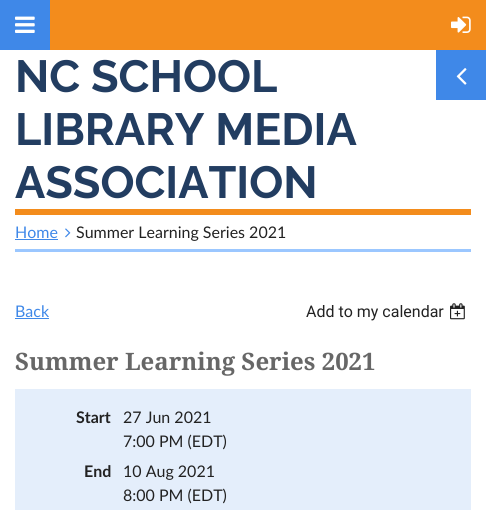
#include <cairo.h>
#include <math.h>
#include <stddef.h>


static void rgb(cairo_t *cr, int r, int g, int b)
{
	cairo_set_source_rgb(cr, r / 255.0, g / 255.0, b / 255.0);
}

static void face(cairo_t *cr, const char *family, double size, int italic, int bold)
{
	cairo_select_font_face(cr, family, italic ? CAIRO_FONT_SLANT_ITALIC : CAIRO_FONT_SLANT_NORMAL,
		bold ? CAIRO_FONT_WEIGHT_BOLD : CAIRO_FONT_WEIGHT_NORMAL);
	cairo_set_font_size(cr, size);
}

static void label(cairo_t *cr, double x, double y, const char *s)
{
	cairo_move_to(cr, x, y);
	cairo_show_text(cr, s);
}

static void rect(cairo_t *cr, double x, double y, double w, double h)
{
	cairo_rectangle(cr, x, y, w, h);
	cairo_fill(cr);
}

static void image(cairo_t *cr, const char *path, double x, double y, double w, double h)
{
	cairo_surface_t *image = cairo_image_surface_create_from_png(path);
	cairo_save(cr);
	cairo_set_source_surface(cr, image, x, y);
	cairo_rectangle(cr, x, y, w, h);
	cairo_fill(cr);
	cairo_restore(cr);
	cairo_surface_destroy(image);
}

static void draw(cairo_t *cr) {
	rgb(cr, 255, 255, 255);
	cairo_paint(cr);
	rgb(cr, 243, 140, 28);
	rect(cr, 50, 0, 436, 50);
	rgb(cr, 63, 136, 232);
	rect(cr, 0, 0, 50, 50);
	image(cr, "image0.png", 15, 16, 20, 17);
	image(cr, "image1.png", 451, 16, 20, 17);
	face(cr, "Raleway", 45, 0, 1);
	rgb(cr, 34, 61, 97);
	label(cr, 15, 92, "NC SCHOOL");
	label(cr, 15, 145, "LIBRARY MEDIA");
	label(cr, 15, 198, "ASSOCIATION");
	rgb(cr, 243, 140, 28);
	rect(cr, 15, 209, 456, 6);
	face(cr, "Lato", 16, 0, 0);
	rgb(cr, 63, 136, 232);
	label(cr, 15, 238, "Home");
	rect(cr, 15, 239, 43, 1);
	image(cr, "image2.png", 65, 228, 6, 10);
	rgb(cr, 34, 34, 34);
	label(cr, 76, 238, "Summer Learning Series 2021");
	rgb(cr, 155, 199, 255);
	rect(cr, 15, 249, 456, 3);
	rgb(cr, 63, 136, 232);
	label(cr, 15, 317, "Back");
	rect(cr, 15, 318, 34, 1);
	face(cr, "Roboto", 16, 0, 0);
	rgb(cr, 34, 34, 34);
	label(cr, 306, 317, "Add to my calendar");
	image(cr, "image3.png", 450, 303, 15, 17);
	face(cr, "Droid Serif", 24, 0, 1);
	rgb(cr, 103, 103, 103);
	label(cr, 15, 370, "Summer Learning Series 2021");
	rgb(cr, 228, 238, 251);
	rect(cr, 15, 389, 456, 121);
	face(cr, "Lato", 16, 0, 1);
	rgb(cr, 34, 34, 34);
	label(cr, 76, 423, "Start");
	face(cr, "Lato", 16, 0, 0);
	label(cr, 123, 423, "27 Jun 2021");
	label(cr, 123, 447, "7:00 PM (EDT)");
	face(cr, "Lato", 16, 0, 1);
	label(cr, 84, 477, "End");
	face(cr, "Lato", 16, 0, 0);
	label(cr, 123, 477, "10 Aug 2021");
	label(cr, 123, 501, "8:00 PM (EDT)");
	rgb(cr, 63, 136, 232);
	rect(cr, 436, 50, 50, 50);
	image(cr, "image4.png", 456, 68, 11, 17);
}

int main(void) {
	cairo_surface_t *surface = cairo_image_surface_create(CAIRO_FORMAT_RGB24, 486, 510);
	cairo_t *cr = cairo_create(surface);
	cairo_font_options_t *options = cairo_font_options_create();
	cairo_font_options_set_hint_metrics(options, CAIRO_HINT_METRICS_OFF);
	cairo_font_options_set_hint_style(options, CAIRO_HINT_STYLE_NONE);
	cairo_set_font_options(cr, options);
	cairo_set_miter_limit(cr, 4);
	draw(cr);
	cairo_surface_write_to_png(surface, "render.png");
	cairo_font_options_destroy(options);
	cairo_destroy(cr);
	cairo_surface_destroy(surface);
	return 0;
}
